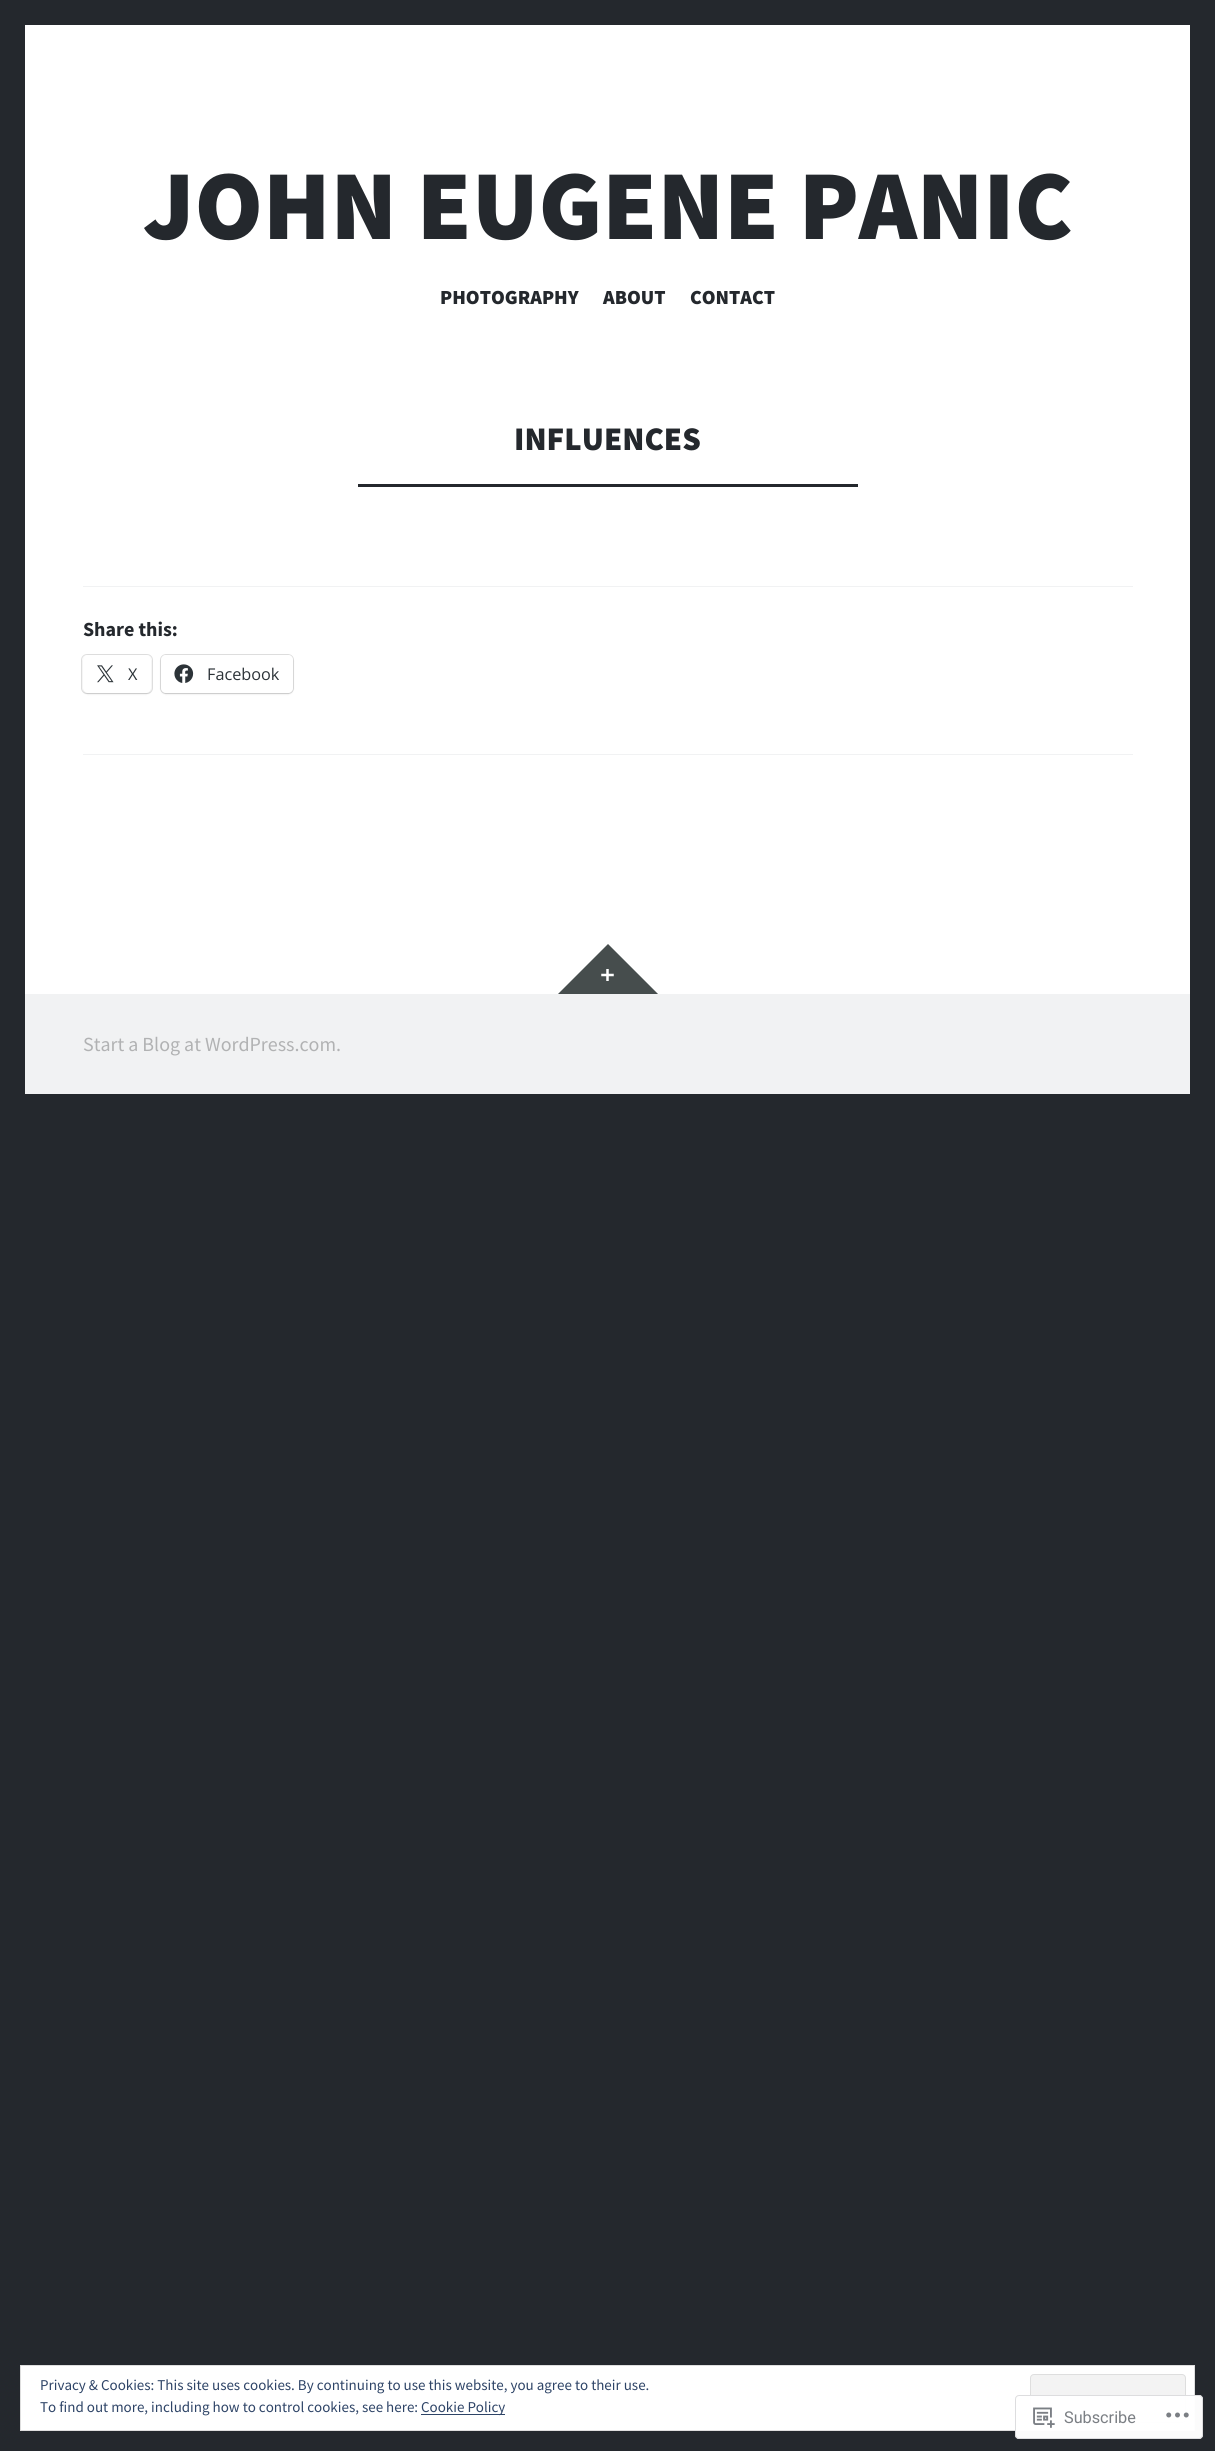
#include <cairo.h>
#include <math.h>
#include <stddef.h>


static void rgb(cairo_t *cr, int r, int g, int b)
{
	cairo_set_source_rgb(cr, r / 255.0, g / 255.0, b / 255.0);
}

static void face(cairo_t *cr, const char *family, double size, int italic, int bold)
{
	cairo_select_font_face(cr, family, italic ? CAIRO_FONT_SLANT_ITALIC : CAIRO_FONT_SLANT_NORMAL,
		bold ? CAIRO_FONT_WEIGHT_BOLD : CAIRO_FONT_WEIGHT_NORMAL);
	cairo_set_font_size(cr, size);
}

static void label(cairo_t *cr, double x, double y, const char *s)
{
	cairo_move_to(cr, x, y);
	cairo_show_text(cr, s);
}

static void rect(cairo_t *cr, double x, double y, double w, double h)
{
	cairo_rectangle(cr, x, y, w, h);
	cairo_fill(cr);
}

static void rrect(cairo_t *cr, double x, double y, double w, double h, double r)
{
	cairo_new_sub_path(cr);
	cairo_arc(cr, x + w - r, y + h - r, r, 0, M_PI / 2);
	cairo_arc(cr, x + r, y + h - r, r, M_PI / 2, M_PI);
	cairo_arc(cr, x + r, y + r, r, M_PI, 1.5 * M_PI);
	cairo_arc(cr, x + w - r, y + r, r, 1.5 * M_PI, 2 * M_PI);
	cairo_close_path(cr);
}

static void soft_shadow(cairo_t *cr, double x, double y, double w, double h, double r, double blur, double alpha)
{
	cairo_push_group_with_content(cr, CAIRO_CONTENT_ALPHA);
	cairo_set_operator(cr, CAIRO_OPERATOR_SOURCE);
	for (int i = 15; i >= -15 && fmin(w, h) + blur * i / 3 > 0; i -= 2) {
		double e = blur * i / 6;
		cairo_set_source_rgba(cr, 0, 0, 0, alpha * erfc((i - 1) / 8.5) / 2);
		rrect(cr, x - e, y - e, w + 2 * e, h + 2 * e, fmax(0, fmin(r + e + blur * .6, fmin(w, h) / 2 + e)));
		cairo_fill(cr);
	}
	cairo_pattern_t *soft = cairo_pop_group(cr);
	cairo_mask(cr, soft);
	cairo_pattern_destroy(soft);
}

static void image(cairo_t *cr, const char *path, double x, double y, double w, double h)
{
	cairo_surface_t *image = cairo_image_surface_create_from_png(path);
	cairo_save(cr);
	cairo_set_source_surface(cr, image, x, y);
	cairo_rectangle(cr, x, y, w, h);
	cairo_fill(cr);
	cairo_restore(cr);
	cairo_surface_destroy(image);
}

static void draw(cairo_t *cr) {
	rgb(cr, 36, 40, 45);
	cairo_paint(cr);
	rgb(cr, 255, 255, 255);
	rect(cr, 25, 25, 1165, 969);
	face(cr, "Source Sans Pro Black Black", 99, 0, 0);
	rgb(cr, 36, 40, 45);
	label(cr, 143, 239, "JOHN EUGENE PANIC");
	face(cr, "Source Sans Pro Black Black", 20, 0, 0);
	label(cr, 440, 304, "PHOTOGRAPHY");
	label(cr, 603, 304, "ABOUT");
	label(cr, 690, 304, "CONTACT");
	face(cr, "Source Sans Pro Black Black", 33, 0, 0);
	label(cr, 514, 450, "INFLUENCES");
	rect(cr, 358, 484, 500, 3);
	rgb(cr, 241, 242, 243);
	rect(cr, 83, 586, 1050, 1);
	face(cr, "Source Sans Pro", 20, 0, 1);
	rgb(cr, 36, 40, 45);
	label(cr, 83, 636, "Share this:");
	rrect(cr, 81.5, 654.5, 71, 39, 5.5);
	rgb(cr, 224, 224, 224);
	cairo_set_line_width(cr, 1);
	cairo_stroke(cr);
	rgb(cr, 0, 0, 0);
	soft_shadow(cr, 83, 656, 68, 38, 5, 1, 0.12);
	rgb(cr, 255, 255, 255);
	rrect(cr, 83, 655, 68, 38, 5);
	cairo_fill(cr);
	image(cr, "image0.png", 97, 665, 17, 18);
	face(cr, "Open Sans", 16.25, 0, 0);
	rgb(cr, 44, 51, 56);
	label(cr, 128, 680, "X");
	rrect(cr, 160.5, 654.5, 133, 39, 5.5);
	rgb(cr, 224, 224, 224);
	cairo_stroke(cr);
	rgb(cr, 0, 0, 0);
	soft_shadow(cr, 161, 656, 132, 38, 5, 1, 0.12);
	rgb(cr, 255, 255, 255);
	rrect(cr, 161, 655, 132, 38, 5);
	cairo_fill(cr);
	image(cr, "image1.png", 174, 664, 20, 19);
	rgb(cr, 44, 51, 56);
	label(cr, 207, 680, "Facebook");
	rgb(cr, 241, 242, 243);
	rect(cr, 83, 754, 1050, 1);
	rgb(cr, 70, 77, 77);
	cairo_new_path(cr);
	cairo_move_to(cr, 658, 994);
	cairo_line_to(cr, 558, 994);
	cairo_line_to(cr, 608, 944);
	cairo_close_path(cr);
	cairo_fill(cr);
	image(cr, "image2.png", 601, 969, 13, 12);
	rgb(cr, 241, 242, 243);
	rect(cr, 25, 994, 1165, 100);
	face(cr, "Source Sans Pro", 20, 0, 0);
	rgb(cr, 177, 178, 179);
	label(cr, 83, 1051, "Start a Blog at WordPress.com.");
	rgb(cr, 255, 255, 255);
	cairo_rectangle(cr, 20.5, 2365.5, 1174, 65);
	cairo_fill_preserve(cr);
	rgb(cr, 222, 222, 222);
	cairo_stroke(cr);
	face(cr, "Source Sans Pro", 15, 0, 0);
	rgb(cr, 46, 68, 103);
	label(cr, 40, 2390, "Privacy & Cookies: This site uses cookies. By continuing to use this website, you agree to their use.");
	rgb(cr, 243, 243, 243);
	rrect(cr, 1030.5, 2374.5, 155, 48, 3.5);
	cairo_fill_preserve(cr);
	rgb(cr, 222, 222, 222);
	cairo_stroke(cr);
	rgb(cr, 46, 68, 103);
	label(cr, 40, 2412, "To find out more, including how to control cookies, see here:");
	rect(cr, 421, 2414, 84, 1);
	label(cr, 421, 2412, "Cookie Policy");
	cairo_set_source_rgba(cr, 1, 1, 1, 0.98);
	rrect(cr, 1015, 2395, 188, 44, 4);
	cairo_fill(cr);
	rrect(cr, 1015.5, 2395.5, 187, 43, 3.5);
	cairo_set_source_rgba(cr, 0.863, 0.863, 0.871, 0.98);
	cairo_stroke(cr);
	image(cr, "image3.png", 1033, 2407, 22, 21);
	face(cr, "Roboto", 16.25, 0, 0);
	rgb(cr, 123, 127, 132);
	label(cr, 1064, 2423, "Subscribe");
	image(cr, "image4.png", 1166, 2412, 23, 6);
}

int main(void) {
	cairo_surface_t *surface = cairo_image_surface_create(CAIRO_FORMAT_RGB24, 1215, 2451);
	cairo_t *cr = cairo_create(surface);
	cairo_font_options_t *options = cairo_font_options_create();
	cairo_font_options_set_hint_metrics(options, CAIRO_HINT_METRICS_OFF);
	cairo_font_options_set_hint_style(options, CAIRO_HINT_STYLE_NONE);
	cairo_set_font_options(cr, options);
	cairo_set_miter_limit(cr, 4);
	draw(cr);
	cairo_surface_write_to_png(surface, "render.png");
	cairo_font_options_destroy(options);
	cairo_destroy(cr);
	cairo_surface_destroy(surface);
	return 0;
}
